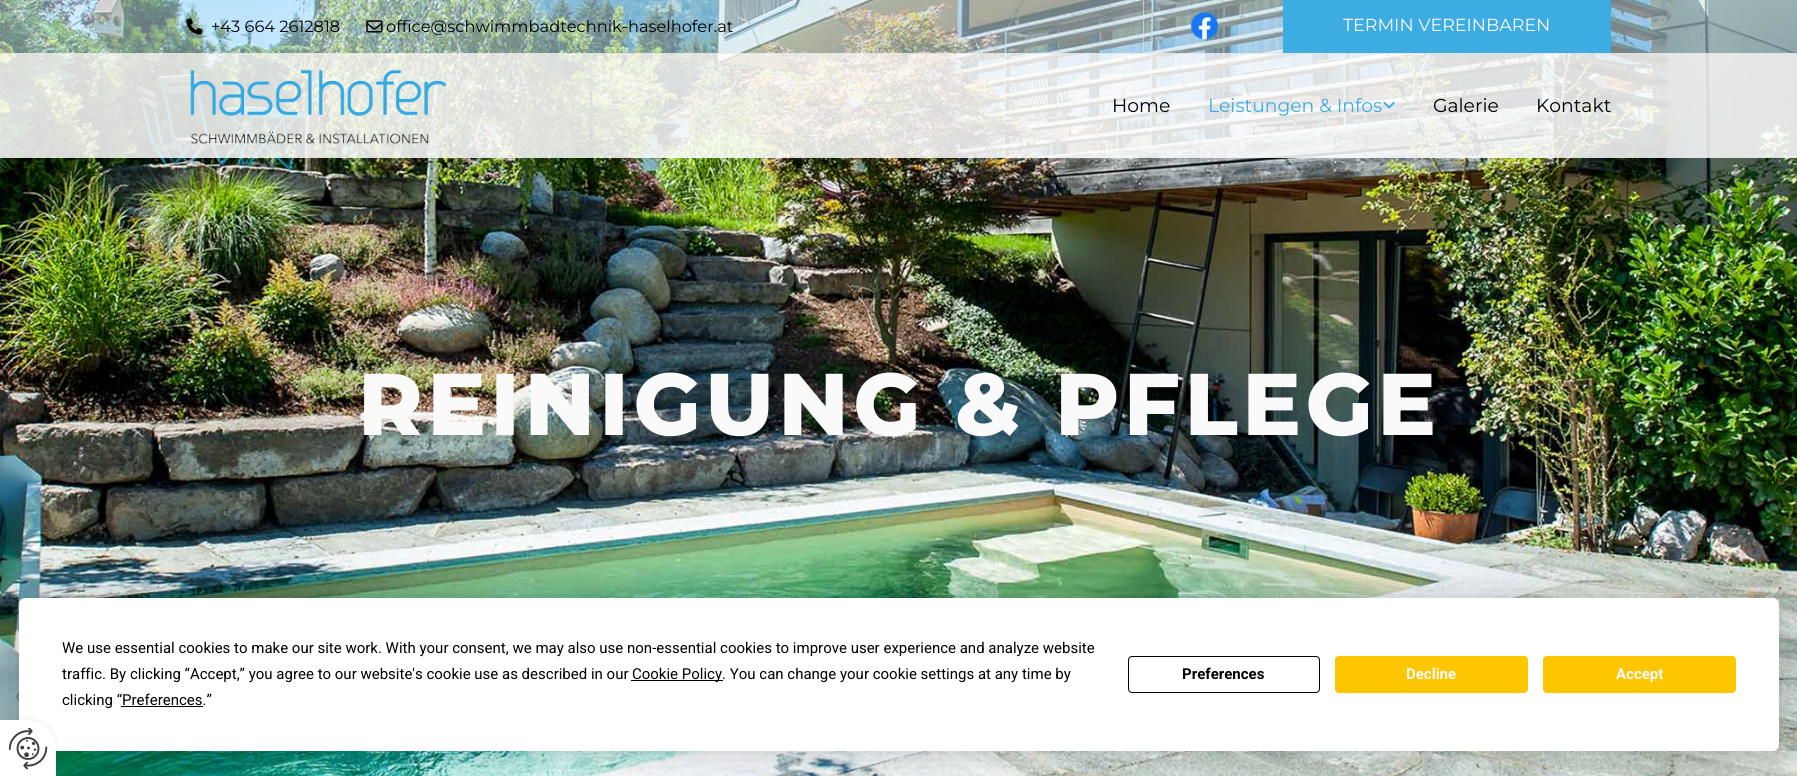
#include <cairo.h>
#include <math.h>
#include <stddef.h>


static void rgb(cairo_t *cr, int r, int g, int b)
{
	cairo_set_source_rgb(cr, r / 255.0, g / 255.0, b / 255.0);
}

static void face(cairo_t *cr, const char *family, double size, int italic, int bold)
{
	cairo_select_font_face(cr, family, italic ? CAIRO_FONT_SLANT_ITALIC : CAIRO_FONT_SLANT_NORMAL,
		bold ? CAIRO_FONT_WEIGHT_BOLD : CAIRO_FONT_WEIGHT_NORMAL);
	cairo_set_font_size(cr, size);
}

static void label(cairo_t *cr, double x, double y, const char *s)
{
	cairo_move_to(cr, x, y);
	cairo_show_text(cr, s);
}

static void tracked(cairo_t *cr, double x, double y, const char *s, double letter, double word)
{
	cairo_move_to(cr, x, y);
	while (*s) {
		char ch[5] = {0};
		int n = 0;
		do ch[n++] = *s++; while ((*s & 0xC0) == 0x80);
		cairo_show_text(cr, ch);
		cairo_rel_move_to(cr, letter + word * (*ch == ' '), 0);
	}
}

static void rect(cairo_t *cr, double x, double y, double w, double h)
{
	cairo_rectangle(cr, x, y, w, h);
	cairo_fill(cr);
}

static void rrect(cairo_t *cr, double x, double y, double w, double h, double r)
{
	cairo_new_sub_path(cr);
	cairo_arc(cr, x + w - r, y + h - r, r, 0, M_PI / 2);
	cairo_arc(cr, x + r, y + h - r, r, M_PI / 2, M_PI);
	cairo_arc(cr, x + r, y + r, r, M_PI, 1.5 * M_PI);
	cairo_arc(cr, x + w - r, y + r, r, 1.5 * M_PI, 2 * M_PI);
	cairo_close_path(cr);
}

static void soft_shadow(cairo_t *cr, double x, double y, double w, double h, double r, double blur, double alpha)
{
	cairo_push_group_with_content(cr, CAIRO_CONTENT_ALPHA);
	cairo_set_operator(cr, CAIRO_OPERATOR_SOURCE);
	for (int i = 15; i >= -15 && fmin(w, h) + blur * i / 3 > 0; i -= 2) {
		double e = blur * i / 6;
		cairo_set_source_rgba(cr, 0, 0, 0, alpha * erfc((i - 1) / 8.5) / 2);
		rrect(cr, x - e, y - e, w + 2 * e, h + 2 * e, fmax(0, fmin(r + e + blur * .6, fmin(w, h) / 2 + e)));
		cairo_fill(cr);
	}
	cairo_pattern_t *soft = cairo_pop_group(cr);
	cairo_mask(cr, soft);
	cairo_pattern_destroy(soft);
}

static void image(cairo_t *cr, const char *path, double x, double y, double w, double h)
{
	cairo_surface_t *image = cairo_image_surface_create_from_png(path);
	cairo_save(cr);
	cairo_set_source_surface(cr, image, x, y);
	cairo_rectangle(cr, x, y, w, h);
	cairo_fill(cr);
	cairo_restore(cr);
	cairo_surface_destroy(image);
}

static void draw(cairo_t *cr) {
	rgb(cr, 255, 255, 255);
	cairo_paint(cr);
	image(cr, "image5.png", 0, 0, 1797, 776);
	cairo_set_source_rgba(cr, 0.827, 0.945, 1, 0.5);
	rect(cr, 0, 0, 1797, 53);
	image(cr, "image0.png", 186, 18, 17, 17);
	face(cr, "Montserrat", 16.25, 0, 0);
	rgb(cr, 0, 0, 0);
	label(cr, 211, 32, "+43 664 2612818");
	image(cr, "image1.png", 366, 20, 17, 13);
	label(cr, 386, 32, "office@schwimmbadtechnik-haselhofer.at");
	cairo_set_source_rgba(cr, 0.886, 0.886, 0.886, 0.65);
	rect(cr, 1143, 0, 1, 53);
	image(cr, "image2.png", 1190, 12, 28, 28);
	rgb(cr, 60, 172, 226);
	rect(cr, 1283, 0, 328, 53);
	face(cr, "Montserrat", 17.5, 0, 0);
	rgb(cr, 250, 250, 250);
	label(cr, 1343, 31, "TERMIN VEREINBAREN");
	cairo_set_source_rgba(cr, 1, 1, 1, 0.85);
	rect(cr, 0, 53, 1797, 105);
	cairo_set_source_rgba(cr, 0.886, 0.886, 0.886, 0.65);
	rect(cr, 0, 53, 1797, 1);
	image(cr, "image3.png", 190, 69, 257, 75);
	face(cr, "Montserrat", 18.75, 0, 0);
	rgb(cr, 0, 0, 0);
	label(cr, 1112, 112, "Home");
	rgb(cr, 60, 172, 226);
	label(cr, 1208, 112, "Leistungen & Infos");
	image(cr, "image4.png", 1383, 101, 12, 8);
	rgb(cr, 0, 0, 0);
	label(cr, 1433, 112, "Galerie");
	label(cr, 1536, 112, "Kontakt");
	face(cr, "Montserrat ExtraBold", 87.5, 0, 0);
	rgb(cr, 250, 250, 250);
	tracked(cr, 358, 435, "REINIGUNG & PFLEGE", 4.4, 0);
	rgb(cr, 0, 0, 0);
	soft_shadow(cr, 19, 598, 1760, 153, 6, 22, 0.25);
	rgb(cr, 255, 255, 255);
	rrect(cr, 19, 598, 1760, 153, 6);
	cairo_fill(cr);
	face(cr, "Roboto", 15, 0, 0);
	rgb(cr, 0, 0, 0);
	label(cr, 62, 653, "We use essential cookies to make our site work. With your consent, we may also use non-essential cookies to improve user experience and analyze website");
	label(cr, 62, 679, "traffic. By clicking “Accept,” you agree to our website's cookie use as described in our");
	rect(cr, 631, 680, 92, 1);
	label(cr, 632, 679, "Cookie Policy. You can change your cookie settings at any time by");
	label(cr, 62, 705, "clicking “Preferences.”");
	rect(cr, 121, 706, 82, 1);
	rrect(cr, 1128.5, 656.5, 191, 36, 3.5);
	cairo_set_line_width(cr, 1);
	cairo_stroke(cr);
	face(cr, "Roboto", 15, 0, 1);
	label(cr, 1182, 679, "Preferences");
	rgb(cr, 254, 198, 0);
	rrect(cr, 1335.5, 656.5, 192, 36, 3.5);
	cairo_fill_preserve(cr);
	cairo_stroke(cr);
	rgb(cr, 250, 250, 250);
	label(cr, 1406, 679, "Decline");
	rgb(cr, 254, 198, 0);
	rrect(cr, 1543.5, 656.5, 192, 36, 3.5);
	cairo_fill_preserve(cr);
	cairo_stroke(cr);
	rgb(cr, 250, 250, 250);
	label(cr, 1616, 679, "Accept");
	rgb(cr, 0, 0, 0);
	soft_shadow(cr, 0, 720, 56, 56, 28, 3, 0.1);
	rgb(cr, 255, 255, 255);
	cairo_new_path(cr);
	cairo_move_to(cr, 0, 720);
	cairo_line_to(cr, 28, 720);
	cairo_curve_to(cr, 43.5, 720, 56, 732.5, 56, 748);
	cairo_line_to(cr, 56, 776);
	cairo_line_to(cr, 0, 776);
	cairo_close_path(cr);
	cairo_fill(cr);
	image(cr, "image6.png", 9, 728, 39, 42);
}

int main(void) {
	cairo_surface_t *surface = cairo_image_surface_create(CAIRO_FORMAT_RGB24, 1797, 776);
	cairo_t *cr = cairo_create(surface);
	cairo_font_options_t *options = cairo_font_options_create();
	cairo_font_options_set_hint_metrics(options, CAIRO_HINT_METRICS_OFF);
	cairo_font_options_set_hint_style(options, CAIRO_HINT_STYLE_NONE);
	cairo_set_font_options(cr, options);
	cairo_set_miter_limit(cr, 4);
	draw(cr);
	cairo_surface_write_to_png(surface, "render.png");
	cairo_font_options_destroy(options);
	cairo_destroy(cr);
	cairo_surface_destroy(surface);
	return 0;
}
